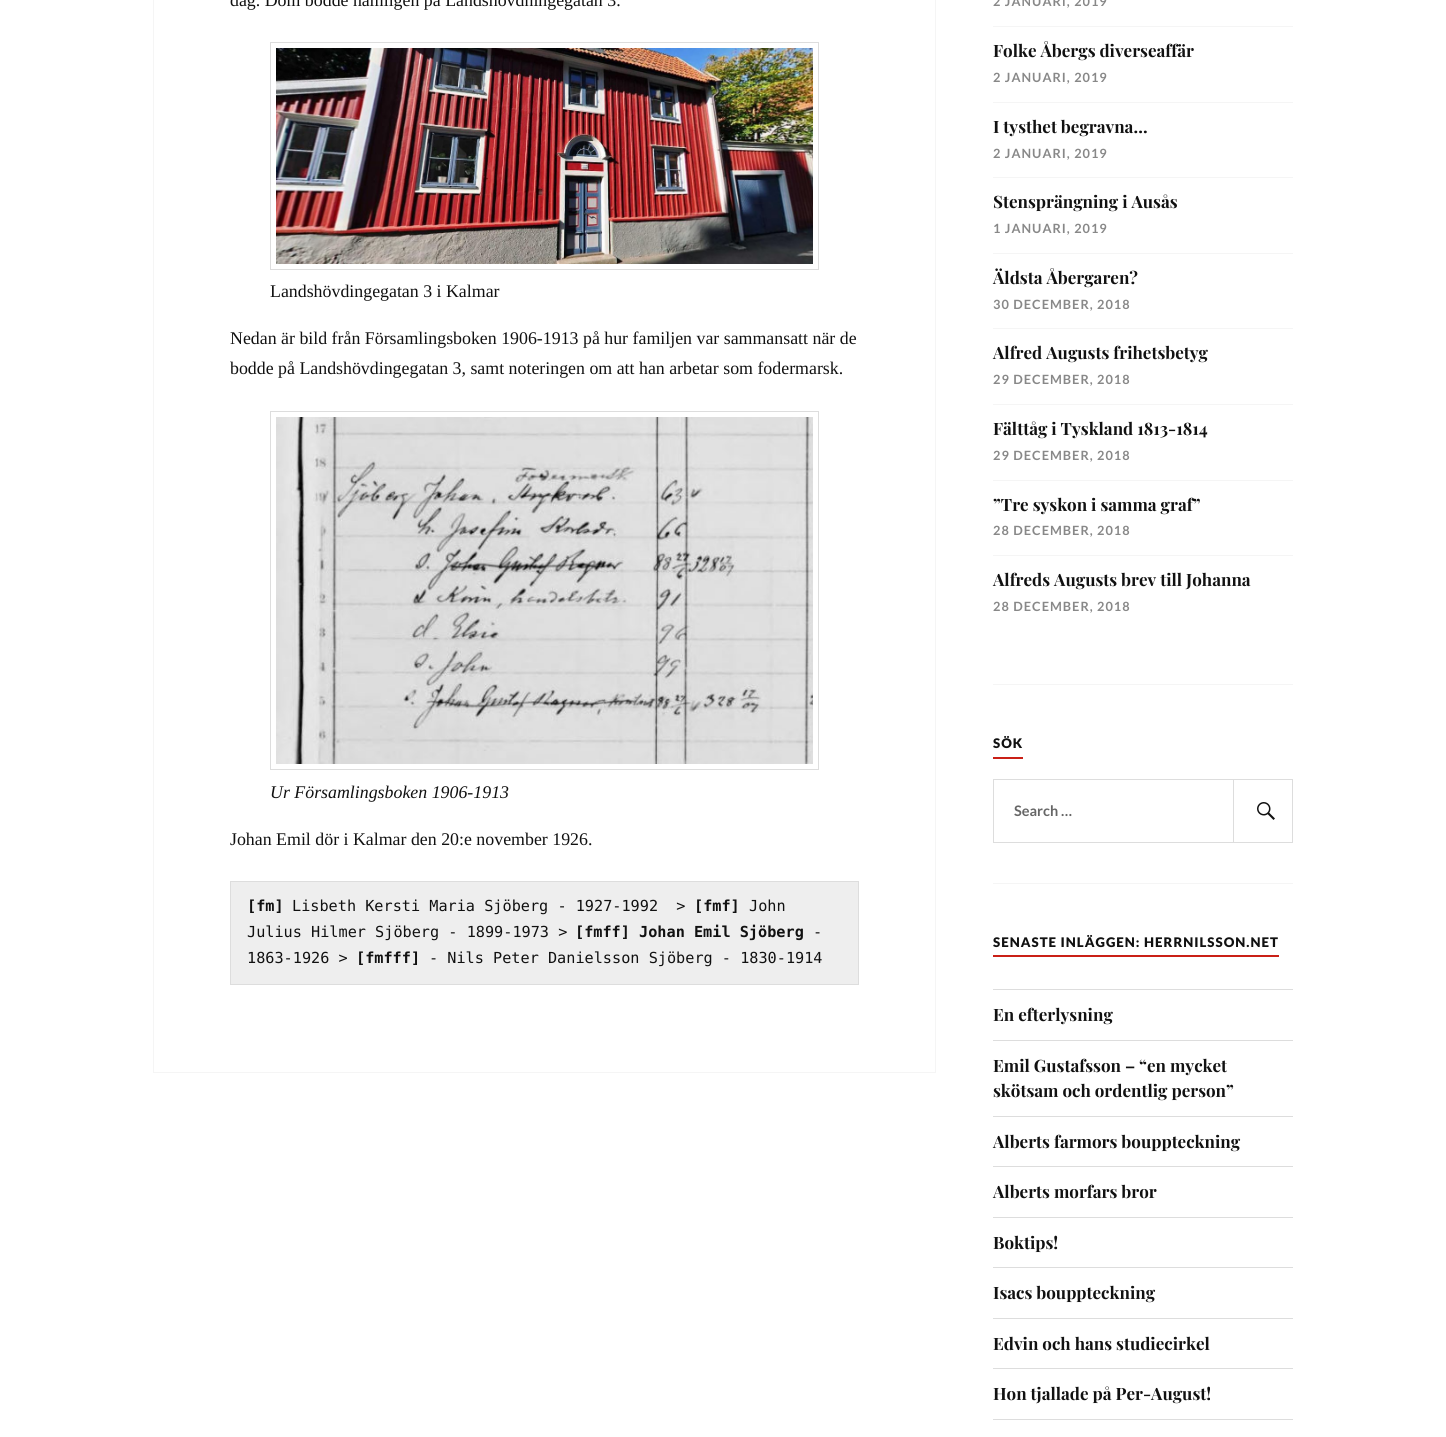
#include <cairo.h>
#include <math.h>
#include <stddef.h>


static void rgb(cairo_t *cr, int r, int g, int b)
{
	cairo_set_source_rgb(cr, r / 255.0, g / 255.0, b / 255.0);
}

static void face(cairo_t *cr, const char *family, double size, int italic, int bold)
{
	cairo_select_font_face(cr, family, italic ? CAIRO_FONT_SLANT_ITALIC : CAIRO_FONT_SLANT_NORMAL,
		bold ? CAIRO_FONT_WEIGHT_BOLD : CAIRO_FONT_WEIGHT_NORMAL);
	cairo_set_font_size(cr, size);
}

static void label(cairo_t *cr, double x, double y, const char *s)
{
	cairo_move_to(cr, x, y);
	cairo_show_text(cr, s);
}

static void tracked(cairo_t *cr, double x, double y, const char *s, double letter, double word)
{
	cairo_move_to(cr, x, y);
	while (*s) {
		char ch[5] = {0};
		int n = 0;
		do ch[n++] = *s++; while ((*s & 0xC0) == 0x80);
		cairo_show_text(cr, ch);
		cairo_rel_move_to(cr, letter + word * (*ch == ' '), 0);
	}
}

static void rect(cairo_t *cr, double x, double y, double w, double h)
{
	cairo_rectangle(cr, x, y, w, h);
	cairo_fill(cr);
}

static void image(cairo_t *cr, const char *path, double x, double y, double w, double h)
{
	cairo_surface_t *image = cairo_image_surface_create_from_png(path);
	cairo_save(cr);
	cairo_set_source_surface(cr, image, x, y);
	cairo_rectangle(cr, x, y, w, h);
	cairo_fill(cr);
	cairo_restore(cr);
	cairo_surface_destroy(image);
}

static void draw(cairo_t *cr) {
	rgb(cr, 255, 255, 255);
	cairo_paint(cr);
	cairo_rectangle(cr, 153.5, -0.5, 782, 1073);
	rgb(cr, 245, 245, 245);
	cairo_set_line_width(cr, 1);
	cairo_stroke(cr);
	face(cr, "Liberation Serif", 17.85, 0, 0);
	rgb(cr, 17, 17, 17);
	label(cr, 230, 6, "dag. Dom bodde nämligen på Landshövdningegatan 3.");
	cairo_rectangle(cr, 270.5, 42.5, 548, 227);
	rgb(cr, 221, 221, 221);
	cairo_stroke(cr);
	image(cr, "image0.png", 276, 48, 537, 216);
	rgb(cr, 17, 17, 17);
	label(cr, 270, 297, "Landshövdingegatan 3 i Kalmar");
	label(cr, 230, 344, "Nedan är bild från Församlingsboken 1906-1913 på hur familjen var sammansatt när de");
	label(cr, 230, 374, "bodde på Landshövdingegatan 3, samt noteringen om att han arbetar som fodermarsk.");
	cairo_rectangle(cr, 270.5, 411.5, 548, 358);
	rgb(cr, 221, 221, 221);
	cairo_stroke(cr);
	image(cr, "image1.png", 276, 417, 537, 347);
	face(cr, "Liberation Serif", 17.85, 1, 0);
	rgb(cr, 17, 17, 17);
	label(cr, 270, 798, "Ur Församlingsboken 1906-1913");
	face(cr, "Liberation Serif", 17.85, 0, 0);
	label(cr, 230, 845, "Johan Emil dör i Kalmar den 20:e november 1926.");
	rgb(cr, 238, 238, 238);
	cairo_rectangle(cr, 230.5, 881.5, 628, 103);
	cairo_fill_preserve(cr);
	rgb(cr, 221, 221, 221);
	cairo_stroke(cr);
	face(cr, "DejaVu Sans Mono", 15.2, 0, 1);
	rgb(cr, 17, 17, 17);
	label(cr, 247, 911, "[fm]");
	face(cr, "DejaVu Sans Mono", 15.2, 0, 0);
	label(cr, 292, 911, "Lisbeth Kersti Maria Sjöberg - 1927-1992  >");
	face(cr, "DejaVu Sans Mono", 15.2, 0, 1);
	label(cr, 694, 911, "[fmf]");
	face(cr, "DejaVu Sans Mono", 15.2, 0, 0);
	label(cr, 749, 911, "John");
	label(cr, 247, 937, "Julius Hilmer Sjöberg - 1899-1973 >");
	face(cr, "DejaVu Sans Mono", 15.2, 0, 1);
	label(cr, 575, 937, "[fmff] Johan Emil Sjöberg");
	face(cr, "DejaVu Sans Mono", 15.2, 0, 0);
	label(cr, 813, 937, "-");
	label(cr, 247, 963, "1863-1926 >");
	face(cr, "DejaVu Sans Mono", 15.2, 0, 1);
	label(cr, 356, 963, "[fmfff]");
	face(cr, "DejaVu Sans Mono", 15.2, 0, 0);
	label(cr, 429, 963, "- Nils Peter Danielsson Sjöberg - 1830-1914");
	rgb(cr, 245, 245, 245);
	rect(cr, 993, 26, 300, 1);
	face(cr, "Lato", 12.75, 0, 1);
	rgb(cr, 136, 136, 136);
	tracked(cr, 993, 6, "2 JANUARI, 2019", 1, 0);
	rgb(cr, 245, 245, 245);
	rect(cr, 993, 102, 300, 1);
	face(cr, "Playfair Display", 17, 0, 1);
	rgb(cr, 17, 17, 17);
	label(cr, 993, 57, "Folke Åbergs diverseaffär");
	face(cr, "Lato", 12.75, 0, 1);
	rgb(cr, 136, 136, 136);
	tracked(cr, 993, 82, "2 JANUARI, 2019", 1, 0);
	rgb(cr, 245, 245, 245);
	rect(cr, 993, 177, 300, 1);
	face(cr, "Playfair Display", 17, 0, 1);
	rgb(cr, 17, 17, 17);
	label(cr, 993, 133, "I tysthet begravna…");
	face(cr, "Lato", 12.75, 0, 1);
	rgb(cr, 136, 136, 136);
	tracked(cr, 993, 158, "2 JANUARI, 2019", 1, 0);
	rgb(cr, 245, 245, 245);
	rect(cr, 993, 253, 300, 1);
	face(cr, "Playfair Display", 17, 0, 1);
	rgb(cr, 17, 17, 17);
	label(cr, 993, 208, "Stensprängning i Ausås");
	face(cr, "Lato", 12.75, 0, 1);
	rgb(cr, 136, 136, 136);
	tracked(cr, 993, 233, "1 JANUARI, 2019", 1, 0);
	rgb(cr, 245, 245, 245);
	rect(cr, 993, 328, 300, 1);
	face(cr, "Playfair Display", 17, 0, 1);
	rgb(cr, 17, 17, 17);
	label(cr, 993, 284, "Äldsta Åbergaren?");
	face(cr, "Lato", 12.75, 0, 1);
	rgb(cr, 136, 136, 136);
	tracked(cr, 993, 309, "30 DECEMBER, 2018", 1, 0);
	rgb(cr, 245, 245, 245);
	rect(cr, 993, 404, 300, 1);
	face(cr, "Playfair Display", 17, 0, 1);
	rgb(cr, 17, 17, 17);
	label(cr, 993, 359, "Alfred Augusts frihetsbetyg");
	face(cr, "Lato", 12.75, 0, 1);
	rgb(cr, 136, 136, 136);
	tracked(cr, 993, 384, "29 DECEMBER, 2018", 1, 0);
	rgb(cr, 245, 245, 245);
	rect(cr, 993, 480, 300, 1);
	face(cr, "Playfair Display", 17, 0, 1);
	rgb(cr, 17, 17, 17);
	label(cr, 993, 435, "Fälttåg i Tyskland 1813-1814");
	face(cr, "Lato", 12.75, 0, 1);
	rgb(cr, 136, 136, 136);
	tracked(cr, 993, 460, "29 DECEMBER, 2018", 1, 0);
	rgb(cr, 245, 245, 245);
	rect(cr, 993, 555, 300, 1);
	face(cr, "Playfair Display", 17, 0, 1);
	rgb(cr, 17, 17, 17);
	label(cr, 993, 511, "”Tre syskon i samma graf”");
	face(cr, "Lato", 12.75, 0, 1);
	rgb(cr, 136, 136, 136);
	tracked(cr, 993, 535, "28 DECEMBER, 2018", 1, 0);
	face(cr, "Playfair Display", 17, 0, 1);
	rgb(cr, 17, 17, 17);
	label(cr, 993, 586, "Alfreds Augusts brev till Johanna");
	face(cr, "Lato", 12.75, 0, 1);
	rgb(cr, 136, 136, 136);
	tracked(cr, 993, 611, "28 DECEMBER, 2018", 1, 0);
	rgb(cr, 245, 245, 245);
	rect(cr, 993, 684, 300, 1);
	rgb(cr, 202, 32, 23);
	rect(cr, 993, 757, 30, 2);
	face(cr, "Lato Black", 13.25, 0, 0);
	rgb(cr, 17, 17, 17);
	tracked(cr, 993, 748, "SÖK", 1, 0);
	cairo_rectangle(cr, 993.5, 779.5, 299, 63);
	rgb(cr, 221, 221, 221);
	cairo_stroke(cr);
	face(cr, "Lato", 14.5, 0, 1);
	rgb(cr, 102, 102, 102);
	label(cr, 1014, 816, "Search …");
	cairo_rectangle(cr, 1233.5, 779.5, 59, 63);
	rgb(cr, 221, 221, 221);
	cairo_stroke(cr);
	image(cr, "image2.png", 1257, 802, 18, 18);
	rgb(cr, 245, 245, 245);
	rect(cr, 993, 883, 300, 1);
	rgb(cr, 202, 32, 23);
	rect(cr, 993, 955, 286, 2);
	face(cr, "Lato Black", 13.25, 0, 0);
	rgb(cr, 17, 17, 17);
	tracked(cr, 993, 947, "SENASTE INLÄGGEN: HERRNILSSON.NET", 1, 0);
	rgb(cr, 221, 221, 221);
	rect(cr, 993, 989, 300, 1);
	face(cr, "Playfair Display", 17, 0, 1);
	rgb(cr, 17, 17, 17);
	label(cr, 993, 1021, "En efterlysning");
	rgb(cr, 221, 221, 221);
	rect(cr, 993, 1040, 300, 1);
	rgb(cr, 17, 17, 17);
	label(cr, 993, 1072, "Emil Gustafsson – “en mycket");
	label(cr, 993, 1097, "skötsam och ordentlig person”");
	rgb(cr, 221, 221, 221);
	rect(cr, 993, 1116, 300, 1);
	rgb(cr, 17, 17, 17);
	label(cr, 993, 1148, "Alberts farmors bouppteckning");
	rgb(cr, 221, 221, 221);
	rect(cr, 993, 1166, 300, 1);
	rgb(cr, 17, 17, 17);
	label(cr, 993, 1198, "Alberts morfars bror");
	rgb(cr, 221, 221, 221);
	rect(cr, 993, 1217, 300, 1);
	rgb(cr, 17, 17, 17);
	label(cr, 993, 1249, "Boktips!");
	rgb(cr, 221, 221, 221);
	rect(cr, 993, 1267, 300, 1);
	rgb(cr, 17, 17, 17);
	label(cr, 993, 1299, "Isacs bouppteckning");
	rgb(cr, 221, 221, 221);
	rect(cr, 993, 1318, 300, 1);
	rgb(cr, 17, 17, 17);
	label(cr, 993, 1350, "Edvin och hans studiecirkel");
	rgb(cr, 221, 221, 221);
	rect(cr, 993, 1368, 300, 1);
	rgb(cr, 17, 17, 17);
	label(cr, 993, 1400, "Hon tjallade på Per-August!");
	rgb(cr, 221, 221, 221);
	rect(cr, 993, 1419, 300, 1);
}

int main(void) {
	cairo_surface_t *surface = cairo_image_surface_create(CAIRO_FORMAT_RGB24, 1446, 1437);
	cairo_t *cr = cairo_create(surface);
	cairo_font_options_t *options = cairo_font_options_create();
	cairo_font_options_set_hint_metrics(options, CAIRO_HINT_METRICS_OFF);
	cairo_font_options_set_hint_style(options, CAIRO_HINT_STYLE_NONE);
	cairo_set_font_options(cr, options);
	cairo_set_miter_limit(cr, 4);
	draw(cr);
	cairo_surface_write_to_png(surface, "render.png");
	cairo_font_options_destroy(options);
	cairo_destroy(cr);
	cairo_surface_destroy(surface);
	return 0;
}
